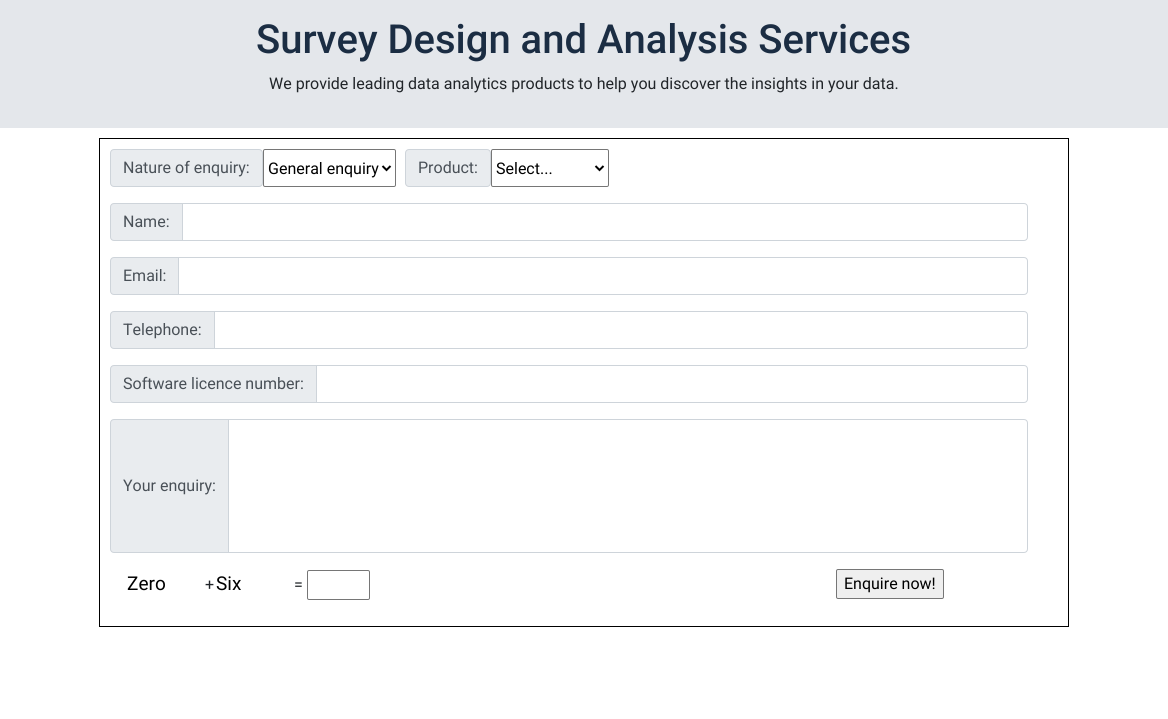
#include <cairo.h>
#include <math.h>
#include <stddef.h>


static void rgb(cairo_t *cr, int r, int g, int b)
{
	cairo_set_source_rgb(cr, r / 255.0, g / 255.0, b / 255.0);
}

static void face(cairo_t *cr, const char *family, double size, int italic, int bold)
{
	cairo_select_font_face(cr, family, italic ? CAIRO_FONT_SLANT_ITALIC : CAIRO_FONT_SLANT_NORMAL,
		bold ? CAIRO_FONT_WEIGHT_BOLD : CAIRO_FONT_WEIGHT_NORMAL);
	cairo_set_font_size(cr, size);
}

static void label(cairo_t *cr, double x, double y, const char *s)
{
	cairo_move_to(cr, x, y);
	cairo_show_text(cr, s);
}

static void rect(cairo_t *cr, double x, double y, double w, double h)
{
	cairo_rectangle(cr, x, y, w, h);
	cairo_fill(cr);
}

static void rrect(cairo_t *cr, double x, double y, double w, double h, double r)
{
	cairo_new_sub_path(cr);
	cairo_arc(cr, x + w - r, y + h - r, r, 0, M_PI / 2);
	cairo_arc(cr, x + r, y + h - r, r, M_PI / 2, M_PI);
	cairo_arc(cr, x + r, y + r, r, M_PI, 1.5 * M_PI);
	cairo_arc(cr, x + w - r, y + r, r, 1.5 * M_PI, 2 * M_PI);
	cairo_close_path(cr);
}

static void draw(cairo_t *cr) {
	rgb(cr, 255, 255, 255);
	cairo_paint(cr);
	rgb(cr, 228, 231, 235);
	rect(cr, 0, 0, 1168, 128);
	face(cr, "Roboto Medium", 40, 0, 0);
	rgb(cr, 27, 45, 67);
	label(cr, 256, 53, "Survey Design and Analysis Services");
	face(cr, "Roboto", 16, 0, 0);
	rgb(cr, 33, 37, 41);
	label(cr, 269, 89, "We provide leading data analytics products to help you discover the insights in your data.");
	cairo_rectangle(cr, 99.5, 138.5, 969, 488);
	rgb(cr, 0, 0, 0);
	cairo_set_line_width(cr, 1);
	cairo_stroke(cr);
	rgb(cr, 233, 236, 239);
	rrect(cr, 110.5, 149.5, 152, 37, 3.5);
	cairo_fill_preserve(cr);
	rgb(cr, 206, 212, 218);
	cairo_stroke(cr);
	rgb(cr, 73, 80, 87);
	label(cr, 123, 173, "Nature of enquiry:");
	rrect(cr, 263.5, 149.5, 132, 37, 1.5);
	rgb(cr, 118, 118, 118);
	cairo_stroke(cr);
	cairo_new_path(cr);
	cairo_move_to(cr, 382.5, 166);
	cairo_line_to(cr, 386.5, 170);
	cairo_line_to(cr, 390.5, 166);
	rgb(cr, 0, 0, 0);
	cairo_set_line_width(cr, 2);
	cairo_stroke(cr);
	label(cr, 268, 174, "General enquiry");
	rgb(cr, 233, 236, 239);
	rrect(cr, 405.5, 149.5, 85, 37, 3.5);
	cairo_fill_preserve(cr);
	rgb(cr, 206, 212, 218);
	cairo_set_line_width(cr, 1);
	cairo_stroke(cr);
	rgb(cr, 73, 80, 87);
	label(cr, 418, 173, "Product:");
	rrect(cr, 491.5, 149.5, 117, 37, 1.5);
	rgb(cr, 118, 118, 118);
	cairo_stroke(cr);
	cairo_new_path(cr);
	cairo_move_to(cr, 595.5, 166);
	cairo_line_to(cr, 599.5, 170);
	cairo_line_to(cr, 603.5, 166);
	rgb(cr, 0, 0, 0);
	cairo_set_line_width(cr, 2);
	cairo_stroke(cr);
	label(cr, 496, 174, "Select...");
	rgb(cr, 233, 236, 239);
	cairo_new_path(cr);
	cairo_move_to(cr, 114, 203.5);
	cairo_line_to(cr, 182.5, 203.5);
	cairo_line_to(cr, 182.5, 240.5);
	cairo_line_to(cr, 114, 240.5);
	cairo_curve_to(cr, 112, 240.5, 110.5, 239, 110.5, 237);
	cairo_line_to(cr, 110.5, 207);
	cairo_curve_to(cr, 110.5, 205, 112, 203.5, 114, 203.5);
	cairo_close_path(cr);
	cairo_fill_preserve(cr);
	rgb(cr, 206, 212, 218);
	cairo_set_line_width(cr, 1);
	cairo_stroke(cr);
	rgb(cr, 73, 80, 87);
	label(cr, 123, 227, "Name:");
	cairo_new_path(cr);
	cairo_move_to(cr, 182.5, 203.5);
	cairo_line_to(cr, 1024, 203.5);
	cairo_curve_to(cr, 1026, 203.5, 1027.5, 205, 1027.5, 207);
	cairo_line_to(cr, 1027.5, 237);
	cairo_curve_to(cr, 1027.5, 239, 1026, 240.5, 1024, 240.5);
	cairo_line_to(cr, 182.5, 240.5);
	cairo_close_path(cr);
	rgb(cr, 206, 212, 218);
	cairo_stroke(cr);
	rgb(cr, 233, 236, 239);
	cairo_new_path(cr);
	cairo_move_to(cr, 114, 257.5);
	cairo_line_to(cr, 178.5, 257.5);
	cairo_line_to(cr, 178.5, 294.5);
	cairo_line_to(cr, 114, 294.5);
	cairo_curve_to(cr, 112, 294.5, 110.5, 293, 110.5, 291);
	cairo_line_to(cr, 110.5, 261);
	cairo_curve_to(cr, 110.5, 259, 112, 257.5, 114, 257.5);
	cairo_close_path(cr);
	cairo_fill_preserve(cr);
	rgb(cr, 206, 212, 218);
	cairo_stroke(cr);
	rgb(cr, 73, 80, 87);
	label(cr, 123, 281, "Email:");
	cairo_new_path(cr);
	cairo_move_to(cr, 178.5, 257.5);
	cairo_line_to(cr, 1024, 257.5);
	cairo_curve_to(cr, 1026, 257.5, 1027.5, 259, 1027.5, 261);
	cairo_line_to(cr, 1027.5, 291);
	cairo_curve_to(cr, 1027.5, 293, 1026, 294.5, 1024, 294.5);
	cairo_line_to(cr, 178.5, 294.5);
	cairo_close_path(cr);
	rgb(cr, 206, 212, 218);
	cairo_stroke(cr);
	rgb(cr, 233, 236, 239);
	cairo_new_path(cr);
	cairo_move_to(cr, 114, 311.5);
	cairo_line_to(cr, 214.5, 311.5);
	cairo_line_to(cr, 214.5, 348.5);
	cairo_line_to(cr, 114, 348.5);
	cairo_curve_to(cr, 112, 348.5, 110.5, 347, 110.5, 345);
	cairo_line_to(cr, 110.5, 315);
	cairo_curve_to(cr, 110.5, 313, 112, 311.5, 114, 311.5);
	cairo_close_path(cr);
	cairo_fill_preserve(cr);
	rgb(cr, 206, 212, 218);
	cairo_stroke(cr);
	rgb(cr, 73, 80, 87);
	label(cr, 123, 335, "Telephone:");
	cairo_new_path(cr);
	cairo_move_to(cr, 214.5, 311.5);
	cairo_line_to(cr, 1024, 311.5);
	cairo_curve_to(cr, 1026, 311.5, 1027.5, 313, 1027.5, 315);
	cairo_line_to(cr, 1027.5, 345);
	cairo_curve_to(cr, 1027.5, 347, 1026, 348.5, 1024, 348.5);
	cairo_line_to(cr, 214.5, 348.5);
	cairo_close_path(cr);
	rgb(cr, 206, 212, 218);
	cairo_stroke(cr);
	rgb(cr, 233, 236, 239);
	cairo_new_path(cr);
	cairo_move_to(cr, 114, 365.5);
	cairo_line_to(cr, 316.5, 365.5);
	cairo_line_to(cr, 316.5, 402.5);
	cairo_line_to(cr, 114, 402.5);
	cairo_curve_to(cr, 112, 402.5, 110.5, 401, 110.5, 399);
	cairo_line_to(cr, 110.5, 369);
	cairo_curve_to(cr, 110.5, 367, 112, 365.5, 114, 365.5);
	cairo_close_path(cr);
	cairo_fill_preserve(cr);
	rgb(cr, 206, 212, 218);
	cairo_stroke(cr);
	rgb(cr, 73, 80, 87);
	label(cr, 123, 389, "Software licence number:");
	cairo_new_path(cr);
	cairo_move_to(cr, 316.5, 365.5);
	cairo_line_to(cr, 1024, 365.5);
	cairo_curve_to(cr, 1026, 365.5, 1027.5, 367, 1027.5, 369);
	cairo_line_to(cr, 1027.5, 399);
	cairo_curve_to(cr, 1027.5, 401, 1026, 402.5, 1024, 402.5);
	cairo_line_to(cr, 316.5, 402.5);
	cairo_close_path(cr);
	rgb(cr, 206, 212, 218);
	cairo_stroke(cr);
	rgb(cr, 233, 236, 239);
	cairo_new_path(cr);
	cairo_move_to(cr, 114, 419.5);
	cairo_line_to(cr, 228.5, 419.5);
	cairo_line_to(cr, 228.5, 552.5);
	cairo_line_to(cr, 114, 552.5);
	cairo_curve_to(cr, 112, 552.5, 110.5, 551, 110.5, 549);
	cairo_line_to(cr, 110.5, 423);
	cairo_curve_to(cr, 110.5, 421, 112, 419.5, 114, 419.5);
	cairo_close_path(cr);
	cairo_fill_preserve(cr);
	rgb(cr, 206, 212, 218);
	cairo_stroke(cr);
	rgb(cr, 73, 80, 87);
	label(cr, 123, 491, "Your enquiry:");
	cairo_new_path(cr);
	cairo_move_to(cr, 228.5, 419.5);
	cairo_line_to(cr, 1024, 419.5);
	cairo_curve_to(cr, 1026, 419.5, 1027.5, 421, 1027.5, 423);
	cairo_line_to(cr, 1027.5, 549);
	cairo_curve_to(cr, 1027.5, 551, 1026, 552.5, 1024, 552.5);
	cairo_line_to(cr, 228.5, 552.5);
	cairo_close_path(cr);
	rgb(cr, 206, 212, 218);
	cairo_stroke(cr);
	face(cr, "Roboto", 19, 0, 0);
	rgb(cr, 0, 0, 0);
	label(cr, 127, 590, "Zero");
	face(cr, "Roboto", 16, 0, 0);
	rgb(cr, 33, 37, 41);
	label(cr, 205, 590, "+");
	face(cr, "Roboto", 19, 0, 0);
	rgb(cr, 0, 0, 0);
	label(cr, 216, 590, "Six");
	face(cr, "Roboto", 16, 0, 0);
	rgb(cr, 33, 37, 41);
	label(cr, 294, 590, "=");
	rrect(cr, 307.5, 570.5, 62, 29, 1.5);
	rgb(cr, 118, 118, 118);
	cairo_stroke(cr);
	rgb(cr, 239, 239, 239);
	rrect(cr, 836.5, 569.5, 107, 29, 1.5);
	cairo_fill_preserve(cr);
	rgb(cr, 118, 118, 118);
	cairo_stroke(cr);
	rgb(cr, 0, 0, 0);
	label(cr, 844, 589, "Enquire now!");
}

int main(void) {
	cairo_surface_t *surface = cairo_image_surface_create(CAIRO_FORMAT_RGB24, 1168, 719);
	cairo_t *cr = cairo_create(surface);
	cairo_font_options_t *options = cairo_font_options_create();
	cairo_font_options_set_hint_metrics(options, CAIRO_HINT_METRICS_OFF);
	cairo_font_options_set_hint_style(options, CAIRO_HINT_STYLE_NONE);
	cairo_set_font_options(cr, options);
	cairo_set_miter_limit(cr, 4);
	draw(cr);
	cairo_surface_write_to_png(surface, "render.png");
	cairo_font_options_destroy(options);
	cairo_destroy(cr);
	cairo_surface_destroy(surface);
	return 0;
}
